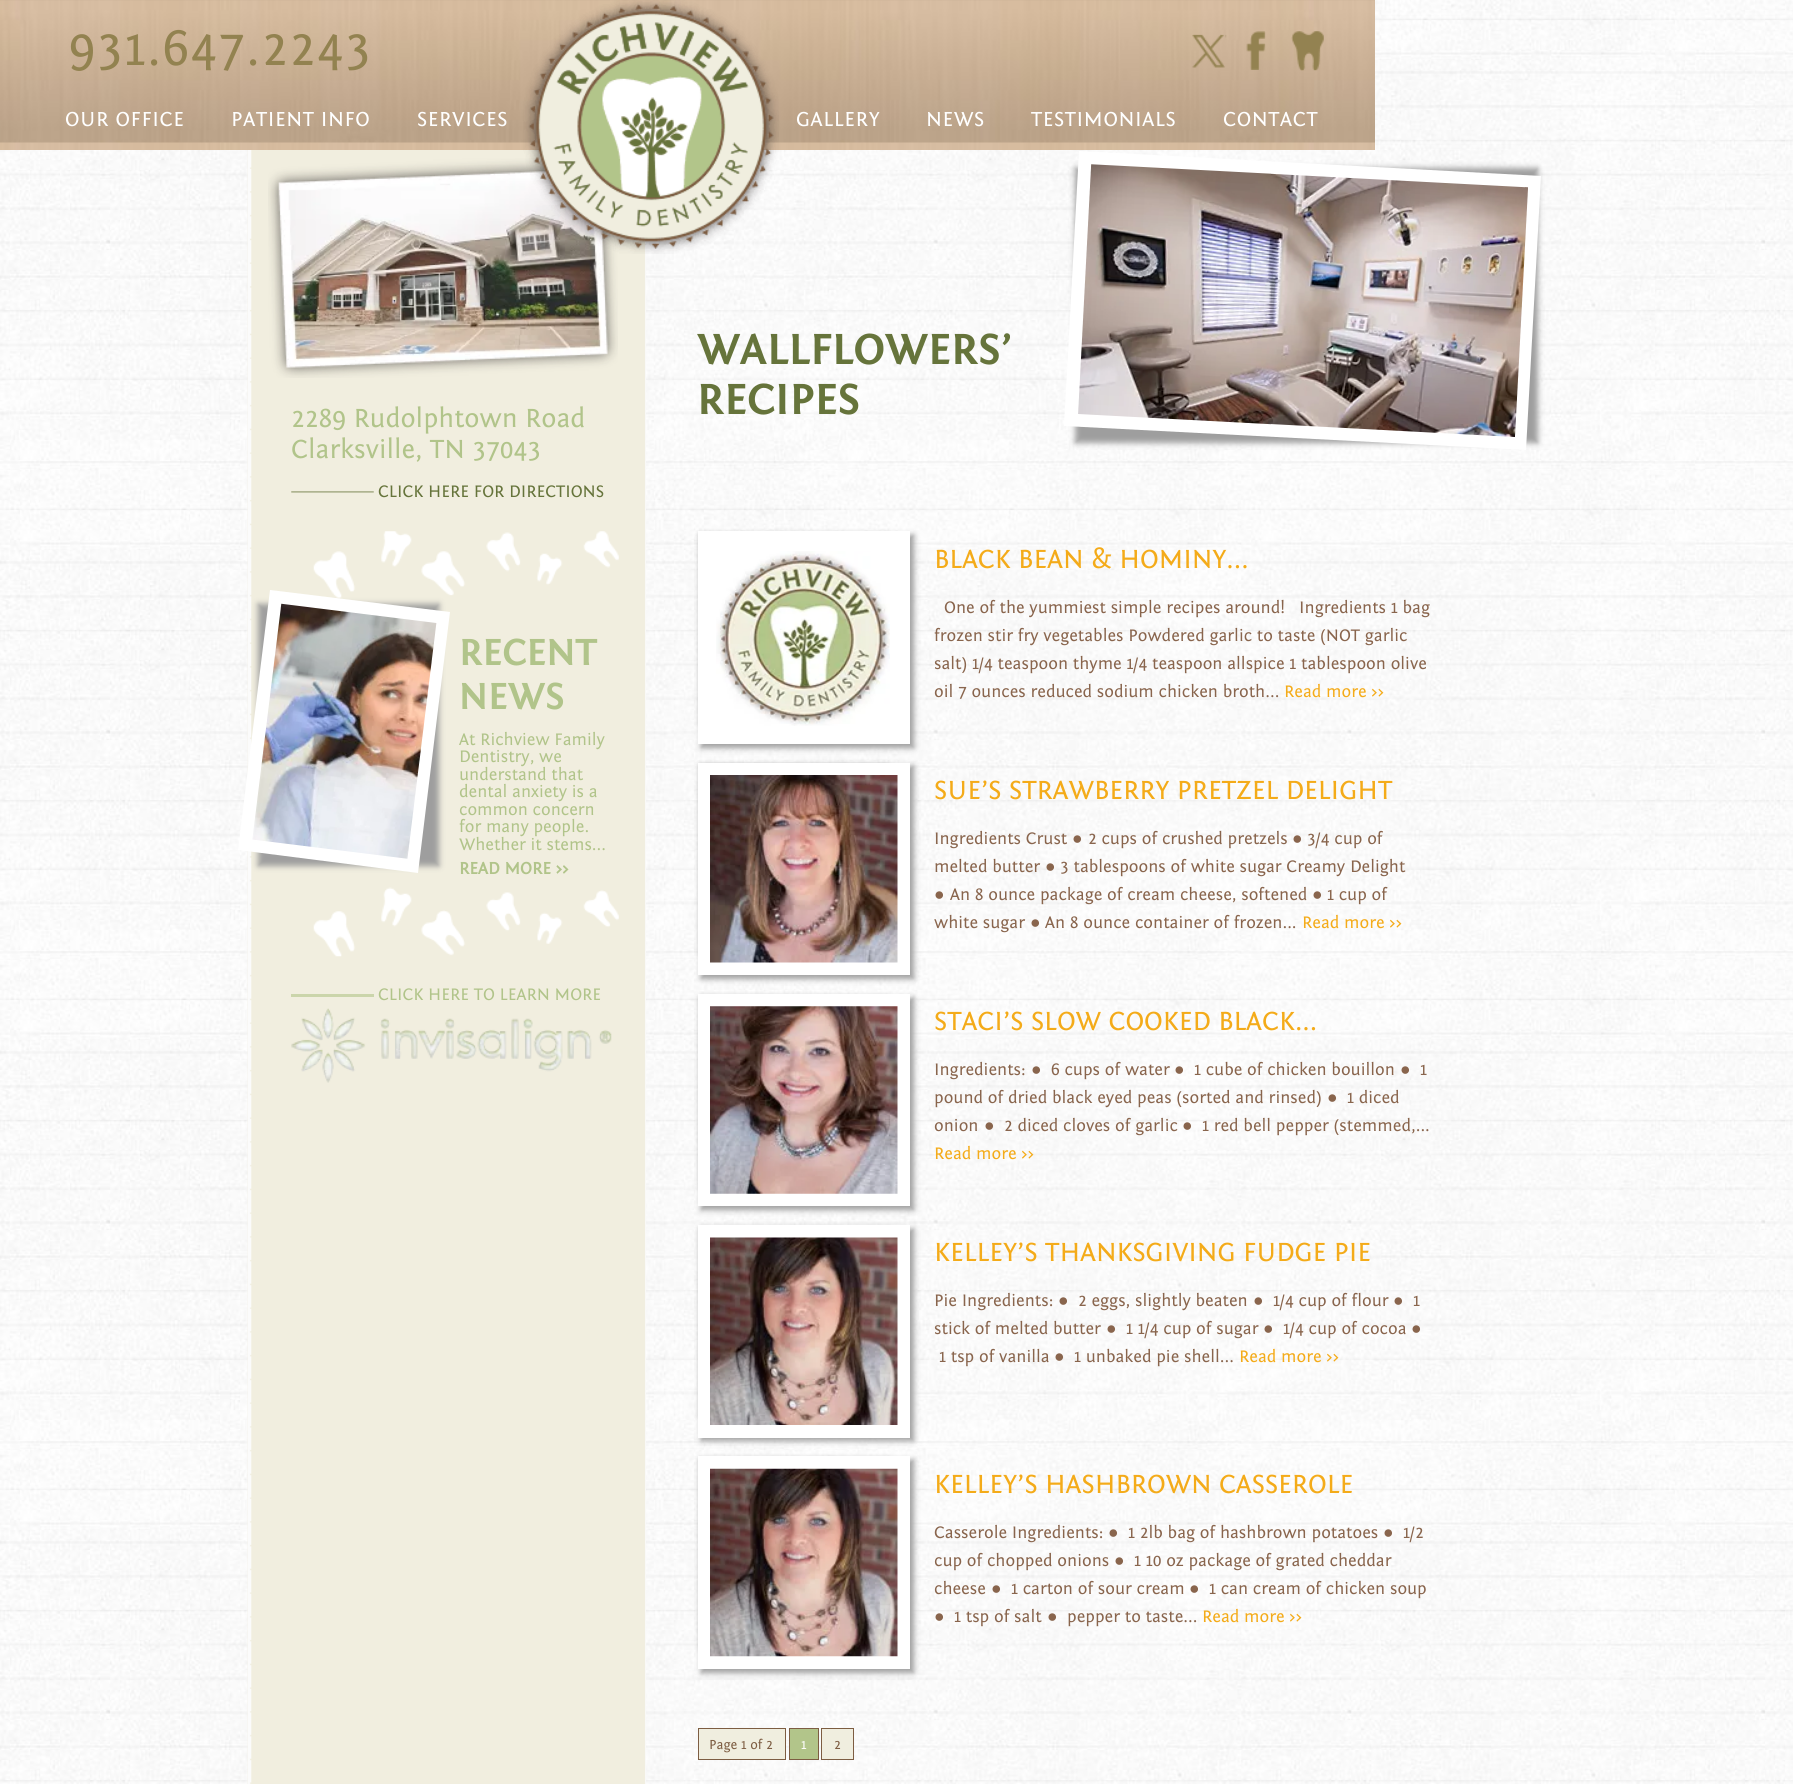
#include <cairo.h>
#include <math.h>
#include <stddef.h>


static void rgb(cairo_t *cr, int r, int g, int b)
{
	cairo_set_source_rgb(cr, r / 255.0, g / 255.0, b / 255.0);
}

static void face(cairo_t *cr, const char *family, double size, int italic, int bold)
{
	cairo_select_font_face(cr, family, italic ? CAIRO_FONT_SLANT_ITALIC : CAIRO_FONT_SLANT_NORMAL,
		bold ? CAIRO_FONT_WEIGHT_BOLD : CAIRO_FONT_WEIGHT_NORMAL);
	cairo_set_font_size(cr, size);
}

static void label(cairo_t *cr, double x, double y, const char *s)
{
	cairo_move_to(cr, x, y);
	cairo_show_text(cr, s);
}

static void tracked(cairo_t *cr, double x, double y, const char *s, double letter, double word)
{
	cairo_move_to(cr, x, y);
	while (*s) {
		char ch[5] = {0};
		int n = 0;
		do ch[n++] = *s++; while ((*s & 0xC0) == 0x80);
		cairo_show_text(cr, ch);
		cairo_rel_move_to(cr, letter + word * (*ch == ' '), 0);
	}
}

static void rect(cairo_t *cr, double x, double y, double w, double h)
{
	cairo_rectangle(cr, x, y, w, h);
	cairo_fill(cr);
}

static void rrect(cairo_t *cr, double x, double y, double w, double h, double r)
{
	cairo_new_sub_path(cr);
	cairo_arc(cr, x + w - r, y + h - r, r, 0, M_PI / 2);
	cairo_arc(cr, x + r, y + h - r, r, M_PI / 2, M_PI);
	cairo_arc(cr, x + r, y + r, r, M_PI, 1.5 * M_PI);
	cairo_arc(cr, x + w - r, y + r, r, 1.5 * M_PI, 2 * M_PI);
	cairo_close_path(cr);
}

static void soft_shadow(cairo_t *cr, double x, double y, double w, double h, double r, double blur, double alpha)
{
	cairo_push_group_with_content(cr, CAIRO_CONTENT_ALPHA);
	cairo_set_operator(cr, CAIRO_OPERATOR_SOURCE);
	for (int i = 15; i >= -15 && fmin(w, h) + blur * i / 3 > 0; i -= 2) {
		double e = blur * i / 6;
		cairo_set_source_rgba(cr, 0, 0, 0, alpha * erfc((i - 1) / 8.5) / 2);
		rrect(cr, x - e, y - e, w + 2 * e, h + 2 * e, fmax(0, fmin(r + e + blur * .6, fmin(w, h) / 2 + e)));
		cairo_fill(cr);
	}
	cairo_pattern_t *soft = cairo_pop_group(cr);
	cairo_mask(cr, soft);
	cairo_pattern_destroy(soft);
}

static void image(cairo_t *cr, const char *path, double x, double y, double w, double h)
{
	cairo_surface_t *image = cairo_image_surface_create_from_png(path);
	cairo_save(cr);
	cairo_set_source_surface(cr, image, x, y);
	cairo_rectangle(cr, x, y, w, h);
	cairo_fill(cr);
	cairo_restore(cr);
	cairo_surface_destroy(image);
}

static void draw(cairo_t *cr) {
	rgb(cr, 255, 255, 255);
	cairo_paint(cr);
	image(cr, "image0.png", 0, 0, 1793, 1784);
	image(cr, "image1.png", 0, 0, 1375, 150);
	face(cr, "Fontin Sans", 52.5, 0, 0);
	rgb(cr, 146, 130, 80);
	tracked(cr, 69, 65, "931.647.2243", 1.5, 0);
	image(cr, "image6.png", 247, 150, 399, 1634);
	image(cr, "image7.png", 268, 158, 350, 220);
	image(cr, "image2.png", 523, 0, 256, 254);
	image(cr, "image3.png", 1192, 34, 35, 34);
	image(cr, "image4.png", 1246, 31, 20, 39);
	image(cr, "image5.png", 1291, 31, 33, 40);
	face(cr, "Fontin Sans", 21.25, 0, 0);
	rgb(cr, 255, 255, 255);
	tracked(cr, 65, 126, "OUR OFFICE", 0.6, 0);
	tracked(cr, 231, 126, "PATIENT INFO", 0.6, 0);
	tracked(cr, 417, 126, "SERVICES", 0.6, 0);
	tracked(cr, 796, 126, "GALLERY", 0.6, 0);
	tracked(cr, 926, 126, "NEWS", 0.6, 0);
	tracked(cr, 1031, 126, "TESTIMONIALS", 0.6, 0);
	tracked(cr, 1223, 126, "CONTACT", 0.6, 0);
	face(cr, "Fontin Sans", 27.5, 0, 0);
	rgb(cr, 177, 196, 138);
	label(cr, 291, 427, "2289 Rudolphtown Road");
	label(cr, 291, 458, "Clarksville, TN 37043");
	image(cr, "image8.png", 291, 491, 83, 2);
	face(cr, "Fontin Sans", 17.5, 0, 0);
	rgb(cr, 102, 116, 59);
	label(cr, 378, 497, "CLICK HERE FOR DIRECTIONS");
	image(cr, "image9.png", 313, 531, 306, 426);
	rgb(cr, 158, 158, 158);
	soft_shadow(cr, 258, 604, 181, 262, 0, 3, 1);
	rgb(cr, 255, 255, 255);
	cairo_new_path(cr);
	cairo_move_to(cr, 270, 590);
	cairo_line_to(cr, 450, 612);
	cairo_line_to(cr, 418, 873);
	cairo_line_to(cr, 238, 850);
	cairo_close_path(cr);
	cairo_fill(cr);
	image(cr, "image10.png", 252, 603, 185, 256);
	face(cr, "Fontin Sans", 39, 0, 1);
	rgb(cr, 177, 196, 138);
	label(cr, 459, 665, "RECENT");
	label(cr, 459, 709, "NEWS");
	face(cr, "Fontin Sans", 17.5, 0, 0);
	label(cr, 459, 745, "At Richview Family");
	label(cr, 459, 762, "Dentistry, we");
	label(cr, 459, 780, "understand that");
	label(cr, 459, 797, "dental anxiety is a");
	label(cr, 459, 815, "common concern");
	label(cr, 459, 832, "for many people.");
	label(cr, 459, 850, "Whether it stems...");
	face(cr, "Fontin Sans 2", 17.5, 0, 1);
	label(cr, 459, 874, "READ MORE >>");
	rgb(cr, 203, 213, 171);
	rect(cr, 291, 994, 83, 3);
	face(cr, "Fontin Sans", 17.5, 0, 0);
	rgb(cr, 177, 196, 138);
	label(cr, 378, 1000, "CLICK HERE TO LEARN MORE");
	image(cr, "image11.png", 291, 1008, 321, 75);
	face(cr, "Fontin Sans", 45, 0, 1);
	rgb(cr, 102, 116, 59);
	label(cr, 697, 364, "WALLFLOWERS’");
	label(cr, 697, 414, "RECIPES");
	rgb(cr, 158, 158, 158);
	soft_shadow(cr, 1075, 168, 463, 275, 0, 3, 1);
	rgb(cr, 255, 255, 255);
	cairo_new_path(cr);
	cairo_move_to(cr, 1079, 151);
	cairo_line_to(cr, 1541, 176);
	cairo_line_to(cr, 1526, 450);
	cairo_line_to(cr, 1064, 426);
	cairo_close_path(cr);
	cairo_fill(cr);
	image(cr, "image12.png", 1078, 164, 450, 273);
	rgb(cr, 158, 158, 158);
	soft_shadow(cr, 701, 535, 188, 188, 0, 3, 1);
	soft_shadow(cr, 701, 535, 213, 213, 0, 3, 1);
	rgb(cr, 255, 255, 255);
	rect(cr, 698, 531, 212, 213);
	image(cr, "image13.png", 716, 551, 174, 175);
	face(cr, "Fontin Sans", 27.5, 0, 0);
	rgb(cr, 244, 171, 25);
	label(cr, 934, 568, "BLACK BEAN & HOMINY...");
	face(cr, "Fontin Sans", 17.5, 0, 0);
	rgb(cr, 137, 101, 77);
	label(cr, 944, 613, "One of the yummiest simple recipes around!   Ingredients 1 bag");
	label(cr, 934, 641, "frozen stir fry vegetables Powdered garlic to taste (NOT garlic");
	label(cr, 934, 669, "salt) 1/4 teaspoon thyme 1/4 teaspoon allspice 1 tablespoon olive");
	label(cr, 934, 697, "oil 7 ounces reduced sodium chicken broth...");
	rgb(cr, 244, 171, 25);
	label(cr, 1284, 697, "Read more >>");
	rgb(cr, 158, 158, 158);
	soft_shadow(cr, 701, 766, 188, 188, 0, 3, 1);
	soft_shadow(cr, 701, 766, 213, 213, 0, 3, 1);
	rgb(cr, 255, 255, 255);
	rect(cr, 698, 763, 212, 212);
	image(cr, "image14.png", 710, 775, 188, 188);
	face(cr, "Fontin Sans", 27.5, 0, 0);
	rgb(cr, 244, 171, 25);
	label(cr, 934, 799, "SUE’S STRAWBERRY PRETZEL DELIGHT");
	face(cr, "Fontin Sans", 17.5, 0, 0);
	rgb(cr, 137, 101, 77);
	label(cr, 934, 844, "Ingredients Crust");
	face(cr, "Liberation Sans", 17.5, 0, 0);
	label(cr, 1072, 844, "●");
	face(cr, "Fontin Sans", 17.5, 0, 0);
	label(cr, 1088, 844, "2 cups of crushed pretzels");
	face(cr, "Liberation Sans", 17.5, 0, 0);
	label(cr, 1292, 844, "●");
	face(cr, "Fontin Sans", 17.5, 0, 0);
	label(cr, 1307, 844, "3/4 cup of");
	label(cr, 934, 872, "melted butter");
	face(cr, "Liberation Sans", 17.5, 0, 0);
	label(cr, 1045, 872, "●");
	face(cr, "Fontin Sans", 17.5, 0, 0);
	label(cr, 1060, 872, "3 tablespoons of white sugar Creamy Delight");
	face(cr, "Liberation Sans", 17.5, 0, 0);
	label(cr, 934, 900, "●");
	face(cr, "Fontin Sans", 17.5, 0, 0);
	label(cr, 950, 900, "An 8 ounce package of cream cheese, softened");
	face(cr, "Liberation Sans", 17.5, 0, 0);
	label(cr, 1312, 900, "●");
	face(cr, "Fontin Sans", 17.5, 0, 0);
	label(cr, 1327, 900, "1 cup of");
	label(cr, 934, 928, "white sugar");
	face(cr, "Liberation Sans", 17.5, 0, 0);
	label(cr, 1030, 928, "●");
	face(cr, "Fontin Sans", 17.5, 0, 0);
	label(cr, 1045, 928, "An 8 ounce container of frozen...");
	rgb(cr, 244, 171, 25);
	label(cr, 1302, 928, "Read more >>");
	rgb(cr, 158, 158, 158);
	soft_shadow(cr, 701, 998, 188, 187, 0, 3, 1);
	soft_shadow(cr, 701, 998, 213, 212, 0, 3, 1);
	rgb(cr, 255, 255, 255);
	rect(cr, 698, 994, 212, 212);
	image(cr, "image15.png", 710, 1006, 188, 188);
	face(cr, "Fontin Sans", 27.5, 0, 0);
	rgb(cr, 244, 171, 25);
	label(cr, 934, 1030, "STACI’S SLOW COOKED BLACK...");
	face(cr, "Fontin Sans", 17.5, 0, 0);
	rgb(cr, 137, 101, 77);
	label(cr, 934, 1075, "Ingredients:");
	face(cr, "Liberation Sans", 17.5, 0, 0);
	label(cr, 1031, 1075, "●");
	face(cr, "Fontin Sans", 17.5, 0, 0);
	label(cr, 1051, 1075, "6 cups of water");
	face(cr, "Liberation Sans", 17.5, 0, 0);
	label(cr, 1174, 1075, "●");
	face(cr, "Fontin Sans", 17.5, 0, 0);
	label(cr, 1194, 1075, "1 cube of chicken bouillon");
	face(cr, "Liberation Sans", 17.5, 0, 0);
	label(cr, 1400, 1075, "●");
	face(cr, "Fontin Sans", 17.5, 0, 0);
	label(cr, 1420, 1075, "1");
	label(cr, 934, 1103, "pound of dried black eyed peas (sorted and rinsed)");
	face(cr, "Liberation Sans", 17.5, 0, 0);
	label(cr, 1327, 1103, "●");
	face(cr, "Fontin Sans", 17.5, 0, 0);
	label(cr, 1347, 1103, "1 diced");
	label(cr, 934, 1131, "onion");
	face(cr, "Liberation Sans", 17.5, 0, 0);
	label(cr, 984, 1131, "●");
	face(cr, "Fontin Sans", 17.5, 0, 0);
	label(cr, 1004, 1131, "2 diced cloves of garlic");
	face(cr, "Liberation Sans", 17.5, 0, 0);
	label(cr, 1182, 1131, "●");
	face(cr, "Fontin Sans", 17.5, 0, 0);
	label(cr, 1202, 1131, "1 red bell pepper (stemmed,...");
	rgb(cr, 244, 171, 25);
	label(cr, 934, 1159, "Read more >>");
	rgb(cr, 158, 158, 158);
	soft_shadow(cr, 701, 1229, 188, 187, 0, 3, 1);
	soft_shadow(cr, 701, 1229, 213, 212, 0, 3, 1);
	rgb(cr, 255, 255, 255);
	rect(cr, 698, 1225, 212, 213);
	image(cr, "image16.png", 710, 1237, 188, 188);
	face(cr, "Fontin Sans", 27.5, 0, 0);
	rgb(cr, 244, 171, 25);
	label(cr, 934, 1261, "KELLEY’S THANKSGIVING FUDGE PIE");
	face(cr, "Fontin Sans", 17.5, 0, 0);
	rgb(cr, 137, 101, 77);
	label(cr, 934, 1306, "Pie Ingredients:");
	face(cr, "Liberation Sans", 17.5, 0, 0);
	label(cr, 1058, 1306, "●");
	face(cr, "Fontin Sans", 17.5, 0, 0);
	label(cr, 1078, 1306, "2 eggs, slightly beaten");
	face(cr, "Liberation Sans", 17.5, 0, 0);
	label(cr, 1253, 1306, "●");
	face(cr, "Fontin Sans", 17.5, 0, 0);
	label(cr, 1273, 1306, "1/4 cup of flour");
	face(cr, "Liberation Sans", 17.5, 0, 0);
	label(cr, 1393, 1306, "●");
	face(cr, "Fontin Sans", 17.5, 0, 0);
	label(cr, 1413, 1306, "1");
	label(cr, 934, 1334, "stick of melted butter");
	face(cr, "Liberation Sans", 17.5, 0, 0);
	label(cr, 1106, 1334, "●");
	face(cr, "Fontin Sans", 17.5, 0, 0);
	label(cr, 1126, 1334, "1 1/4 cup of sugar");
	face(cr, "Liberation Sans", 17.5, 0, 0);
	label(cr, 1263, 1334, "●");
	face(cr, "Fontin Sans", 17.5, 0, 0);
	label(cr, 1283, 1334, "1/4 cup of cocoa");
	face(cr, "Liberation Sans", 17.5, 0, 0);
	label(cr, 1411, 1334, "●");
	face(cr, "Fontin Sans", 17.5, 0, 0);
	label(cr, 939, 1362, "1 tsp of vanilla");
	face(cr, "Liberation Sans", 17.5, 0, 0);
	label(cr, 1054, 1362, "●");
	face(cr, "Fontin Sans", 17.5, 0, 0);
	label(cr, 1074, 1362, "1 unbaked pie shell...");
	rgb(cr, 244, 171, 25);
	label(cr, 1239, 1362, "Read more >>");
	rgb(cr, 158, 158, 158);
	soft_shadow(cr, 701, 1460, 188, 188, 0, 3, 1);
	soft_shadow(cr, 701, 1460, 213, 213, 0, 3, 1);
	rgb(cr, 255, 255, 255);
	rect(cr, 698, 1456, 212, 213);
	image(cr, "image17.png", 710, 1468, 188, 189);
	face(cr, "Fontin Sans", 27.5, 0, 0);
	rgb(cr, 244, 171, 25);
	label(cr, 934, 1493, "KELLEY’S HASHBROWN CASSEROLE");
	face(cr, "Fontin Sans", 17.5, 0, 0);
	rgb(cr, 137, 101, 77);
	label(cr, 934, 1538, "Casserole Ingredients:");
	face(cr, "Liberation Sans", 17.5, 0, 0);
	label(cr, 1108, 1538, "●");
	face(cr, "Fontin Sans", 17.5, 0, 0);
	label(cr, 1128, 1538, "1 2lb bag of hashbrown potatoes");
	face(cr, "Liberation Sans", 17.5, 0, 0);
	label(cr, 1383, 1538, "●");
	face(cr, "Fontin Sans", 17.5, 0, 0);
	label(cr, 1403, 1538, "1/2");
	label(cr, 934, 1566, "cup of chopped onions");
	face(cr, "Liberation Sans", 17.5, 0, 0);
	label(cr, 1114, 1566, "●");
	face(cr, "Fontin Sans", 17.5, 0, 0);
	label(cr, 1134, 1566, "1 10 oz package of grated cheddar");
	label(cr, 934, 1594, "cheese");
	face(cr, "Liberation Sans", 17.5, 0, 0);
	label(cr, 991, 1594, "●");
	face(cr, "Fontin Sans", 17.5, 0, 0);
	label(cr, 1011, 1594, "1 carton of sour cream");
	face(cr, "Liberation Sans", 17.5, 0, 0);
	label(cr, 1189, 1594, "●");
	face(cr, "Fontin Sans", 17.5, 0, 0);
	label(cr, 1209, 1594, "1 can cream of chicken soup");
	face(cr, "Liberation Sans", 17.5, 0, 0);
	label(cr, 934, 1622, "●");
	face(cr, "Fontin Sans", 17.5, 0, 0);
	label(cr, 954, 1622, "1 tsp of salt");
	face(cr, "Liberation Sans", 17.5, 0, 0);
	label(cr, 1047, 1622, "●");
	face(cr, "Fontin Sans", 17.5, 0, 0);
	label(cr, 1067, 1622, "pepper to taste...");
	rgb(cr, 244, 171, 25);
	label(cr, 1202, 1622, "Read more >>");
	rgb(cr, 240, 238, 223);
	cairo_rectangle(cr, 698.5, 1728.5, 87, 31);
	cairo_fill_preserve(cr);
	rgb(cr, 125, 93, 66);
	cairo_set_line_width(cr, 1);
	cairo_stroke(cr);
	face(cr, "Fontin Sans", 13.75, 0, 0);
	label(cr, 709, 1749, "Page 1 of 2");
	rgb(cr, 178, 197, 138);
	cairo_rectangle(cr, 789.5, 1728.5, 29, 31);
	cairo_fill_preserve(cr);
	rgb(cr, 125, 93, 66);
	cairo_stroke(cr);
	rgb(cr, 255, 255, 255);
	label(cr, 801, 1749, "1");
	rgb(cr, 240, 238, 223);
	cairo_rectangle(cr, 821.5, 1728.5, 32, 31);
	cairo_fill_preserve(cr);
	rgb(cr, 125, 93, 66);
	cairo_stroke(cr);
	label(cr, 834, 1749, "2");
}

int main(void) {
	cairo_surface_t *surface = cairo_image_surface_create(CAIRO_FORMAT_RGB24, 1793, 1784);
	cairo_t *cr = cairo_create(surface);
	cairo_font_options_t *options = cairo_font_options_create();
	cairo_font_options_set_hint_metrics(options, CAIRO_HINT_METRICS_OFF);
	cairo_font_options_set_hint_style(options, CAIRO_HINT_STYLE_NONE);
	cairo_set_font_options(cr, options);
	cairo_set_miter_limit(cr, 4);
	draw(cr);
	cairo_surface_write_to_png(surface, "render.png");
	cairo_font_options_destroy(options);
	cairo_destroy(cr);
	cairo_surface_destroy(surface);
	return 0;
}
